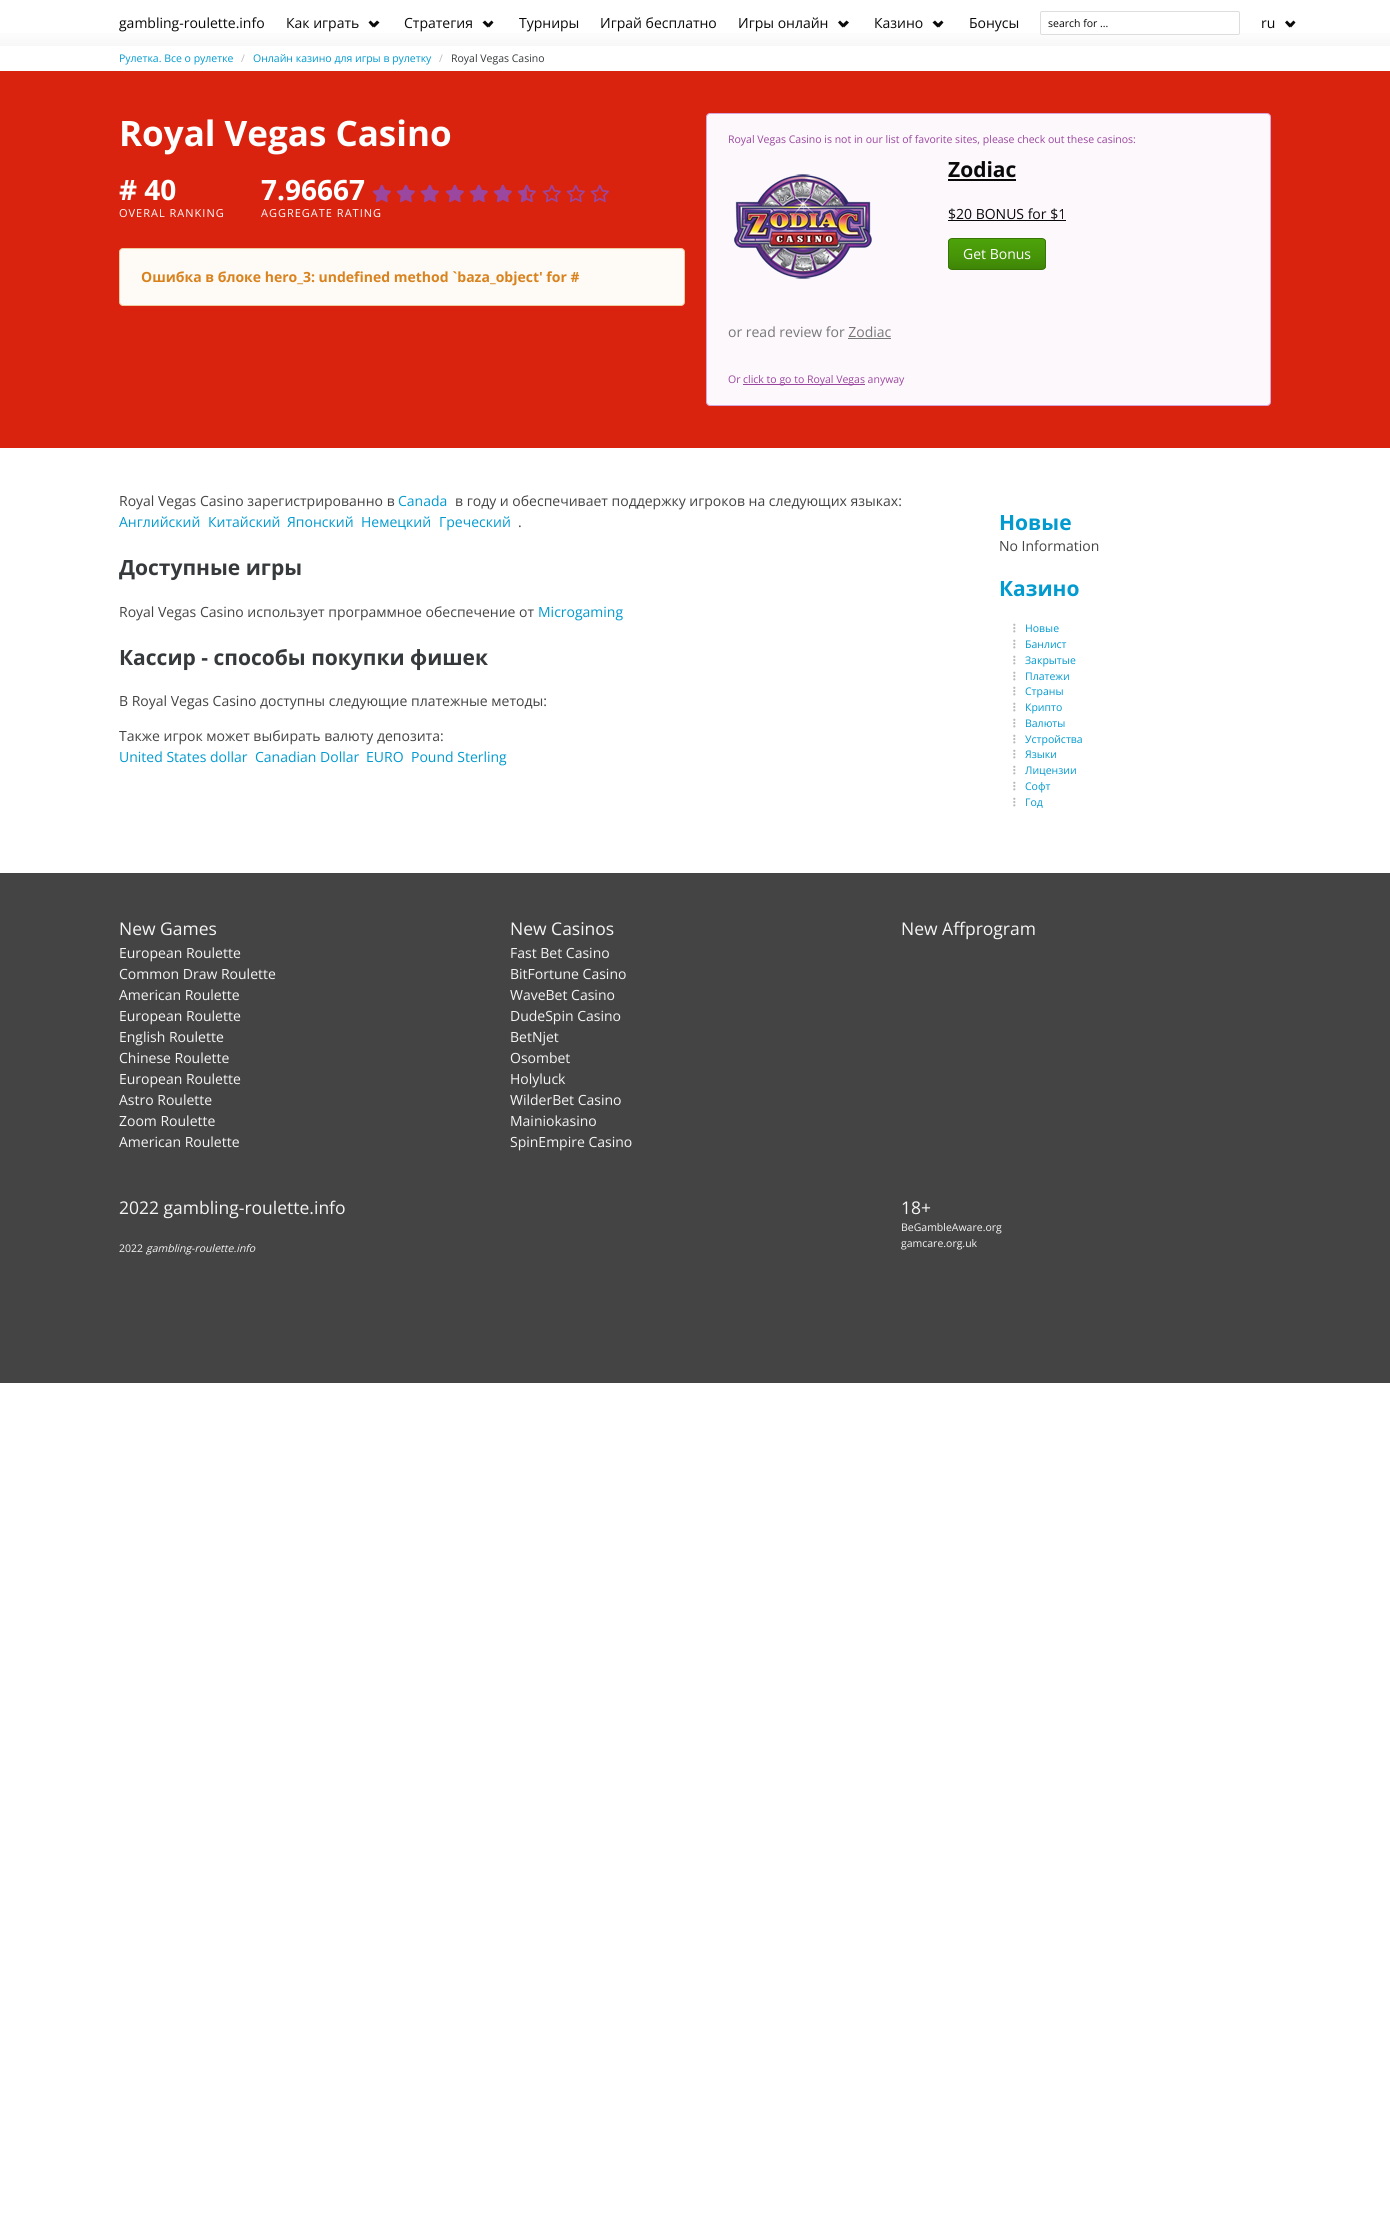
#include <cairo.h>
#include <math.h>
#include <stddef.h>


static void rgb(cairo_t *cr, int r, int g, int b)
{
	cairo_set_source_rgb(cr, r / 255.0, g / 255.0, b / 255.0);
}

static void face(cairo_t *cr, const char *family, double size, int italic, int bold)
{
	cairo_select_font_face(cr, family, italic ? CAIRO_FONT_SLANT_ITALIC : CAIRO_FONT_SLANT_NORMAL,
		bold ? CAIRO_FONT_WEIGHT_BOLD : CAIRO_FONT_WEIGHT_NORMAL);
	cairo_set_font_size(cr, size);
}

static void label(cairo_t *cr, double x, double y, const char *s)
{
	cairo_move_to(cr, x, y);
	cairo_show_text(cr, s);
}

static void tracked(cairo_t *cr, double x, double y, const char *s, double letter, double word)
{
	cairo_move_to(cr, x, y);
	while (*s) {
		char ch[5] = {0};
		int n = 0;
		do ch[n++] = *s++; while ((*s & 0xC0) == 0x80);
		cairo_show_text(cr, ch);
		cairo_rel_move_to(cr, letter + word * (*ch == ' '), 0);
	}
}

static void rect(cairo_t *cr, double x, double y, double w, double h)
{
	cairo_rectangle(cr, x, y, w, h);
	cairo_fill(cr);
}

static void rrect(cairo_t *cr, double x, double y, double w, double h, double r)
{
	cairo_new_sub_path(cr);
	cairo_arc(cr, x + w - r, y + h - r, r, 0, M_PI / 2);
	cairo_arc(cr, x + r, y + h - r, r, M_PI / 2, M_PI);
	cairo_arc(cr, x + r, y + r, r, M_PI, 1.5 * M_PI);
	cairo_arc(cr, x + w - r, y + r, r, 1.5 * M_PI, 2 * M_PI);
	cairo_close_path(cr);
}

static void image(cairo_t *cr, const char *path, double x, double y, double w, double h)
{
	cairo_surface_t *image = cairo_image_surface_create_from_png(path);
	cairo_save(cr);
	cairo_set_source_surface(cr, image, x, y);
	cairo_rectangle(cr, x, y, w, h);
	cairo_fill(cr);
	cairo_restore(cr);
	cairo_surface_destroy(image);
}

static void draw(cairo_t *cr) {
	cairo_pattern_t *gradient;
	rgb(cr, 255, 255, 255);
	cairo_paint(cr);
	gradient = cairo_pattern_create_linear(695, 0, 695, 46);
	cairo_pattern_add_color_stop_rgba(gradient, 0, 1, 1, 1, 1);
	cairo_pattern_add_color_stop_rgba(gradient, 0.6, 1, 1, 1, 1);
	cairo_pattern_add_color_stop_rgba(gradient, 1, 0.969, 0.969, 0.969, 1);
	cairo_set_source(cr, gradient);
	cairo_pattern_destroy(gradient);
	rect(cr, 0, 33, 1390, 13);
	face(cr, "Open Sans", 14, 0, 0);
	rgb(cr, 10, 10, 10);
	label(cr, 119, 28, "gambling-roulette.info");
	label(cr, 286, 28, "Как играть");
	cairo_new_path(cr);
	cairo_move_to(cr, 372.5, 25);
	cairo_line_to(cr, 377, 20.5);
	cairo_line_to(cr, 379.5, 22.5);
	cairo_line_to(cr, 374.5, 27.5);
	cairo_close_path(cr);
	cairo_fill(cr);
	cairo_new_path(cr);
	cairo_move_to(cr, 368.5, 22.5);
	cairo_line_to(cr, 370.5, 20.5);
	cairo_line_to(cr, 375, 25);
	cairo_line_to(cr, 373, 27.5);
	cairo_close_path(cr);
	cairo_fill(cr);
	label(cr, 404, 28, "Стратегия");
	cairo_new_path(cr);
	cairo_move_to(cr, 487, 25);
	cairo_line_to(cr, 491.5, 20.5);
	cairo_line_to(cr, 493.5, 22.5);
	cairo_line_to(cr, 489, 27.5);
	cairo_close_path(cr);
	cairo_fill(cr);
	cairo_new_path(cr);
	cairo_move_to(cr, 482.5, 22.5);
	cairo_line_to(cr, 485, 20.5);
	cairo_line_to(cr, 489.5, 25);
	cairo_line_to(cr, 487.5, 27.5);
	cairo_close_path(cr);
	cairo_fill(cr);
	label(cr, 519, 28, "Турниры");
	label(cr, 600, 28, "Играй бесплатно");
	label(cr, 738, 28, "Игры онлайн");
	cairo_new_path(cr);
	cairo_move_to(cr, 842, 25);
	cairo_line_to(cr, 846.5, 20.5);
	cairo_line_to(cr, 849, 22.5);
	cairo_line_to(cr, 844, 27.5);
	cairo_close_path(cr);
	cairo_fill(cr);
	cairo_new_path(cr);
	cairo_move_to(cr, 838, 22.5);
	cairo_line_to(cr, 840, 20.5);
	cairo_line_to(cr, 844.5, 25);
	cairo_line_to(cr, 842.5, 27.5);
	cairo_close_path(cr);
	cairo_fill(cr);
	label(cr, 874, 28, "Казино");
	cairo_new_path(cr);
	cairo_move_to(cr, 936.5, 25);
	cairo_line_to(cr, 941.5, 20.5);
	cairo_line_to(cr, 943.5, 22.5);
	cairo_line_to(cr, 939, 27.5);
	cairo_close_path(cr);
	cairo_fill(cr);
	cairo_new_path(cr);
	cairo_move_to(cr, 932.5, 22.5);
	cairo_line_to(cr, 935, 20.5);
	cairo_line_to(cr, 939.5, 25);
	cairo_line_to(cr, 937.5, 27.5);
	cairo_close_path(cr);
	cairo_fill(cr);
	label(cr, 969, 28, "Бонусы");
	rgb(cr, 255, 255, 255);
	rrect(cr, 1040.5, 11.5, 199, 23, 1.5);
	cairo_fill_preserve(cr);
	rgb(cr, 221, 221, 221);
	cairo_set_line_width(cr, 1);
	cairo_stroke(cr);
	face(cr, "Open Sans", 10.5, 0, 0);
	rgb(cr, 10, 10, 10);
	label(cr, 1048, 27, "search for ...");
	face(cr, "Open Sans", 14, 0, 0);
	label(cr, 1261, 28, "ru");
	cairo_new_path(cr);
	cairo_move_to(cr, 1289, 25);
	cairo_line_to(cr, 1293.5, 20.5);
	cairo_line_to(cr, 1295.5, 22.5);
	cairo_line_to(cr, 1291, 27.5);
	cairo_close_path(cr);
	cairo_fill(cr);
	cairo_new_path(cr);
	cairo_move_to(cr, 1285, 22.5);
	cairo_line_to(cr, 1287, 20.5);
	cairo_line_to(cr, 1291.5, 25);
	cairo_line_to(cr, 1289.5, 27.5);
	cairo_close_path(cr);
	cairo_fill(cr);
	face(cr, "Open Sans", 10.5, 0, 0);
	rgb(cr, 2, 154, 207);
	label(cr, 119, 62, "Рулетка. Все о рулетке");
	rgb(cr, 187, 187, 187);
	label(cr, 241, 62, "/");
	rgb(cr, 2, 154, 207);
	label(cr, 253, 62, "Онлайн казино для игры в рулетку");
	rgb(cr, 187, 187, 187);
	label(cr, 439, 62, "/");
	rgb(cr, 55, 58, 60);
	label(cr, 451, 62, "Royal Vegas Casino");
	rgb(cr, 217, 35, 15);
	rect(cr, 0, 71, 1390, 377);
	face(cr, "Open Sans", 35, 0, 1);
	rgb(cr, 255, 255, 255);
	label(cr, 119, 146, "Royal Vegas Casino");
	face(cr, "Open Sans", 28, 0, 1);
	label(cr, 119, 200, "# 40");
	face(cr, "Open Sans", 11, 0, 0);
	tracked(cr, 119, 217, "OVERAL RANKING", 1, 0);
	face(cr, "Open Sans", 28, 0, 1);
	label(cr, 261, 200, "7.96667");
	image(cr, "image0.png", 372, 184, 19, 19);
	image(cr, "image0.png", 396, 184, 19, 19);
	image(cr, "image0.png", 420, 184, 19, 19);
	image(cr, "image0.png", 445, 184, 19, 19);
	image(cr, "image0.png", 469, 184, 19, 19);
	image(cr, "image0.png", 493, 184, 19, 19);
	image(cr, "image1.png", 517, 184, 19, 19);
	image(cr, "image2.png", 542, 184, 19, 19);
	image(cr, "image2.png", 566, 184, 19, 19);
	image(cr, "image2.png", 590, 184, 19, 19);
	face(cr, "Open Sans", 11, 0, 0);
	tracked(cr, 261, 217, "AGGREGATE RATING", 1, 0);
	rgb(cr, 254, 250, 246);
	rrect(cr, 119.5, 248.5, 565, 57, 3.5);
	cairo_fill_preserve(cr);
	rgb(cr, 241, 204, 160);
	cairo_stroke(cr);
	face(cr, "Open Sans", 14, 0, 1);
	rgb(cr, 217, 131, 31);
	label(cr, 141, 282, "Ошибка в блоке hero_3: undefined method `baza_object' for #");
	rgb(cr, 252, 248, 252);
	rrect(cr, 706.5, 113.5, 564, 292, 3.5);
	cairo_fill_preserve(cr);
	rgb(cr, 214, 167, 216);
	cairo_stroke(cr);
	face(cr, "Open Sans", 10.5, 0, 0);
	rgb(cr, 155, 71, 159);
	label(cr, 728, 143, "Royal Vegas Casino is not in our list of favorite sites, please check out these casinos:");
	image(cr, "image3.png", 734, 174, 138, 105);
	face(cr, "Open Sans", 21, 0, 1);
	rgb(cr, 10, 10, 10);
	label(cr, 948, 177, "Zodiac");
	rect(cr, 948, 179, 68, 2);
	face(cr, "Open Sans", 14, 0, 0);
	label(cr, 948, 219, "$20 BONUS for $1");
	rect(cr, 948, 220, 118, 1);
	cairo_save(cr);
	rrect(cr, 948, 238, 98, 32, 4);
	cairo_clip(cr);
	gradient = cairo_pattern_create_linear(997, 239, 997, 269);
	cairo_pattern_add_color_stop_rgba(gradient, 0, 0.302, 0.639, 0.035, 1);
	cairo_pattern_add_color_stop_rgba(gradient, 0.6, 0.275, 0.58, 0.031, 1);
	cairo_pattern_add_color_stop_rgba(gradient, 1, 0.247, 0.522, 0.027, 1);
	cairo_set_source(cr, gradient);
	cairo_pattern_destroy(gradient);
	rect(cr, 948, 239, 98, 30);
	cairo_restore(cr);
	rrect(cr, 948.5, 238.5, 97, 31, 3.5);
	rgb(cr, 55, 117, 6);
	cairo_stroke(cr);
	rgb(cr, 255, 255, 255);
	label(cr, 963, 259, "Get Bonus");
	rgb(cr, 119, 119, 119);
	label(cr, 728, 337, "or read review for Zodiac");
	rect(cr, 848, 338, 43, 1);
	face(cr, "Open Sans", 10.5, 0, 0);
	rgb(cr, 155, 71, 159);
	label(cr, 728, 383, "Or");
	rect(cr, 743, 384, 122, 1);
	label(cr, 743, 383, "click to go to Royal Vegas anyway");
	face(cr, "Open Sans", 14, 0, 0);
	rgb(cr, 68, 68, 68);
	label(cr, 119, 506, "Royal Vegas Casino зарегистрированно в");
	rgb(cr, 2, 154, 207);
	label(cr, 398, 506, "Canada");
	rgb(cr, 68, 68, 68);
	label(cr, 455, 506, "в году и обеспечивает поддержку игроков на следующих языках:");
	rgb(cr, 2, 154, 207);
	label(cr, 119, 527, "Английский");
	label(cr, 208, 527, "Китайский");
	label(cr, 287, 527, "Японский");
	label(cr, 361, 527, "Немецкий");
	label(cr, 439, 527, "Греческий");
	rgb(cr, 68, 68, 68);
	label(cr, 518, 527, ".");
	face(cr, "Open Sans", 21, 0, 1);
	rgb(cr, 55, 58, 60);
	label(cr, 119, 575, "Доступные игры");
	face(cr, "Open Sans", 14, 0, 0);
	rgb(cr, 68, 68, 68);
	label(cr, 119, 617, "Royal Vegas Casino использует программное обеспечение от");
	rgb(cr, 2, 154, 207);
	label(cr, 538, 617, "Microgaming");
	face(cr, "Open Sans", 21, 0, 1);
	rgb(cr, 55, 58, 60);
	label(cr, 119, 665, "Кассир - способы покупки фишек");
	face(cr, "Open Sans", 14, 0, 0);
	rgb(cr, 68, 68, 68);
	label(cr, 119, 706, "В Royal Vegas Casino доступны следующие платежные методы:");
	label(cr, 119, 741, "Также игрок может выбирать валюту депозита:");
	rgb(cr, 2, 154, 207);
	label(cr, 119, 762, "United States dollar");
	label(cr, 255, 762, "Canadian Dollar");
	label(cr, 366, 762, "EURO");
	label(cr, 411, 762, "Pound Sterling");
	face(cr, "Open Sans", 21, 0, 1);
	label(cr, 999, 530, "Новые");
	face(cr, "Open Sans", 14, 0, 0);
	rgb(cr, 68, 68, 68);
	label(cr, 999, 551, "No Information");
	face(cr, "Open Sans", 21, 0, 1);
	rgb(cr, 2, 154, 207);
	label(cr, 999, 596, "Казино");
	image(cr, "image4.png", 1013, 623, 3, 10);
	face(cr, "Open Sans", 10.5, 0, 0);
	label(cr, 1025, 632, "Новые");
	image(cr, "image4.png", 1013, 639, 3, 10);
	label(cr, 1025, 648, "Банлист");
	image(cr, "image4.png", 1013, 655, 3, 10);
	label(cr, 1025, 664, "Закрытые");
	image(cr, "image4.png", 1013, 671, 3, 10);
	label(cr, 1025, 680, "Платежи");
	image(cr, "image4.png", 1013, 686, 3, 10);
	label(cr, 1025, 695, "Страны");
	image(cr, "image4.png", 1013, 702, 3, 10);
	label(cr, 1025, 711, "Крипто");
	image(cr, "image4.png", 1013, 718, 3, 10);
	label(cr, 1025, 727, "Валюты");
	image(cr, "image4.png", 1013, 734, 3, 10);
	label(cr, 1025, 743, "Устройства");
	image(cr, "image4.png", 1013, 749, 3, 10);
	label(cr, 1025, 758, "Языки");
	image(cr, "image4.png", 1013, 765, 3, 10);
	label(cr, 1025, 774, "Лицензии");
	image(cr, "image4.png", 1013, 781, 3, 10);
	label(cr, 1025, 790, "Софт");
	image(cr, "image4.png", 1013, 797, 3, 10);
	label(cr, 1025, 806, "Год");
	rgb(cr, 68, 68, 68);
	rect(cr, 0, 873, 1390, 510);
	face(cr, "Open Sans", 17.5, 0, 0);
	rgb(cr, 245, 245, 245);
	label(cr, 119, 935, "New Games");
	face(cr, "Open Sans", 14, 0, 0);
	label(cr, 119, 958, "European Roulette");
	label(cr, 119, 979, "Common Draw Roulette");
	label(cr, 119, 1000, "American Roulette");
	label(cr, 119, 1021, "European Roulette");
	label(cr, 119, 1042, "English Roulette");
	label(cr, 119, 1063, "Chinese Roulette");
	label(cr, 119, 1084, "European Roulette");
	label(cr, 119, 1105, "Astro Roulette");
	label(cr, 119, 1126, "Zoom Roulette");
	label(cr, 119, 1147, "American Roulette");
	face(cr, "Open Sans", 17.5, 0, 0);
	label(cr, 510, 935, "New Casinos");
	face(cr, "Open Sans", 14, 0, 0);
	label(cr, 510, 958, "Fast Bet Casino");
	label(cr, 510, 979, "BitFortune Casino");
	label(cr, 510, 1000, "WaveBet Casino");
	label(cr, 510, 1021, "DudeSpin Casino");
	label(cr, 510, 1042, "BetNjet");
	label(cr, 510, 1063, "Osombet");
	label(cr, 510, 1084, "Holyluck");
	label(cr, 510, 1105, "WilderBet Casino");
	label(cr, 510, 1126, "Mainiokasino");
	label(cr, 510, 1147, "SpinEmpire Casino");
	face(cr, "Open Sans", 17.5, 0, 0);
	label(cr, 901, 935, "New Affprogram");
	label(cr, 119, 1214, "2022 gambling-roulette.info");
	face(cr, "Open Sans", 10.5, 0, 0);
	label(cr, 119, 1252, "2022");
	face(cr, "Open Sans", 10.5, 1, 0);
	label(cr, 146, 1252, "gambling-roulette.info");
	face(cr, "Open Sans", 17.5, 0, 0);
	label(cr, 901, 1214, "18+");
	face(cr, "Open Sans", 10.5, 0, 0);
	label(cr, 901, 1231, "BeGambleAware.org");
	label(cr, 901, 1247, "gamcare.org.uk");
}

int main(void) {
	cairo_surface_t *surface = cairo_image_surface_create(CAIRO_FORMAT_RGB24, 1390, 2228);
	cairo_t *cr = cairo_create(surface);
	cairo_font_options_t *options = cairo_font_options_create();
	cairo_font_options_set_hint_metrics(options, CAIRO_HINT_METRICS_OFF);
	cairo_font_options_set_hint_style(options, CAIRO_HINT_STYLE_NONE);
	cairo_set_font_options(cr, options);
	cairo_set_miter_limit(cr, 4);
	draw(cr);
	cairo_surface_write_to_png(surface, "render.png");
	cairo_font_options_destroy(options);
	cairo_destroy(cr);
	cairo_surface_destroy(surface);
	return 0;
}
